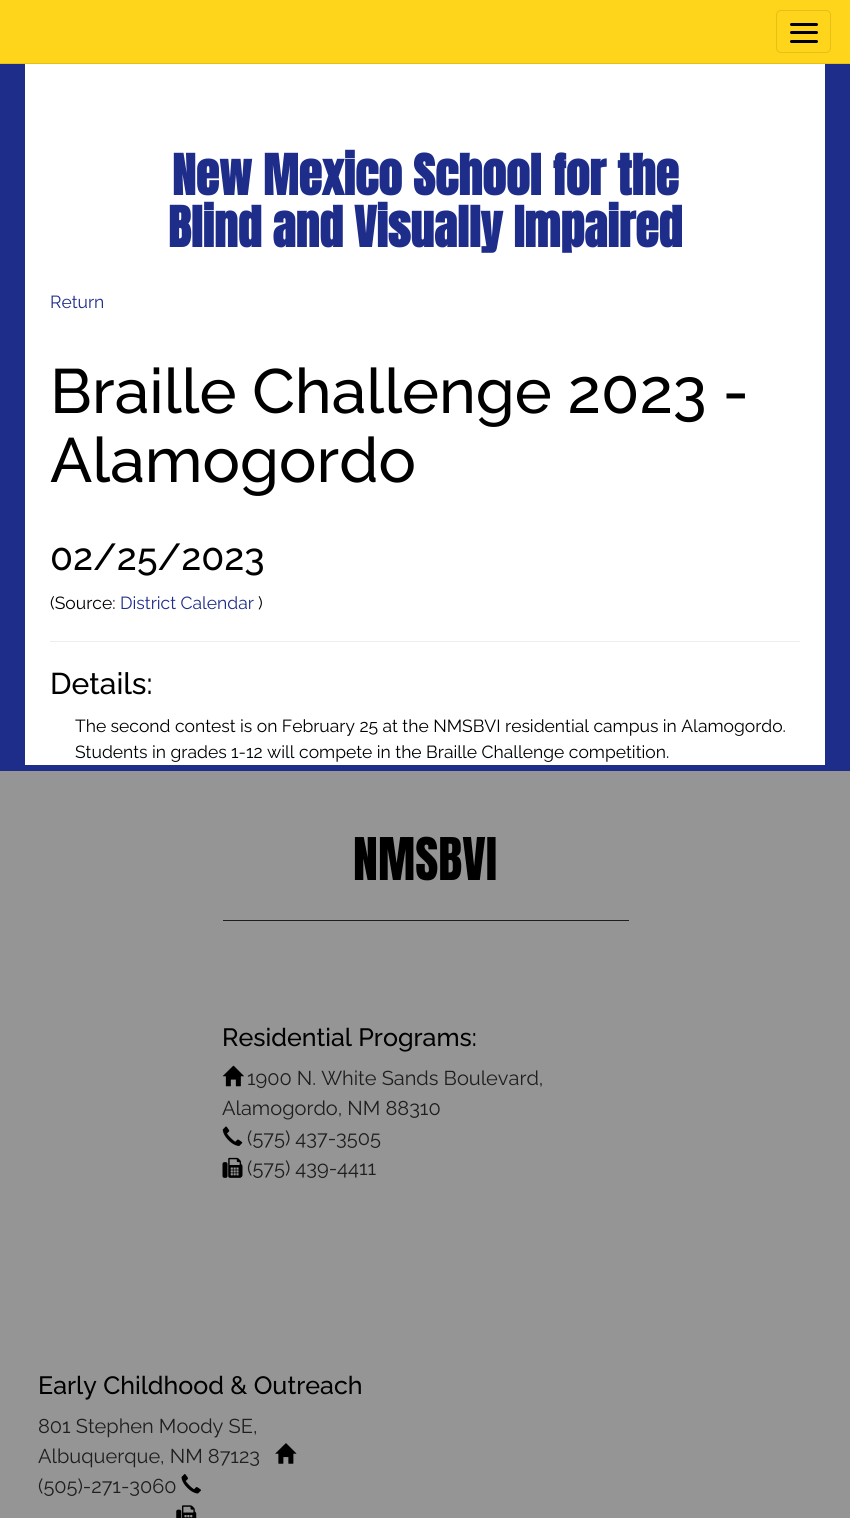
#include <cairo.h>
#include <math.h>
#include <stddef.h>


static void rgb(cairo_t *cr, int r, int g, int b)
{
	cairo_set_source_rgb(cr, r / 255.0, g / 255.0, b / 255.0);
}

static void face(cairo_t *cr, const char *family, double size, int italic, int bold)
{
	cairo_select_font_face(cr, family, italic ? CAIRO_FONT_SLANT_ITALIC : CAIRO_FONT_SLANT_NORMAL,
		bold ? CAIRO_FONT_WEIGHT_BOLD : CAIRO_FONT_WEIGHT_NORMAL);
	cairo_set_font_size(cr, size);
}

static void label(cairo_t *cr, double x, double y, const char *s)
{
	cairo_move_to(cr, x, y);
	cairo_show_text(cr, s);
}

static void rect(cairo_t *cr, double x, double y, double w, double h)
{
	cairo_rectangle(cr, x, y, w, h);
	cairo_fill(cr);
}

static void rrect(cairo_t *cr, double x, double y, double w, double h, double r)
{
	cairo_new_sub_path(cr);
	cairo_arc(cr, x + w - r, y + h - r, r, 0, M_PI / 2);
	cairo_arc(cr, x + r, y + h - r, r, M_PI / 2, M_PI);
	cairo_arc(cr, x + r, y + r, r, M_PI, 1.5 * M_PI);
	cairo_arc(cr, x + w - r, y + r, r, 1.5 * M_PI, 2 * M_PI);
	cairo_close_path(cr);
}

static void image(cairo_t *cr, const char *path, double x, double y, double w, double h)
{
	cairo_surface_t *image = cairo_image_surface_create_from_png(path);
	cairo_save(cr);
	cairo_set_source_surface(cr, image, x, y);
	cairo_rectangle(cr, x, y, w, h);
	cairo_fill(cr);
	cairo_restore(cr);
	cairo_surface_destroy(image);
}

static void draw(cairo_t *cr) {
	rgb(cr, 31, 45, 138);
	cairo_paint(cr);
	rgb(cr, 254, 213, 26);
	rect(cr, 0, 0, 850, 63);
	rgb(cr, 229, 192, 23);
	rect(cr, 0, 63, 850, 1);
	rrect(cr, 776.5, 10.5, 54, 42, 4.5);
	cairo_set_line_width(cr, 1);
	cairo_stroke(cr);
	rgb(cr, 0, 0, 0);
	rrect(cr, 790, 23, 28, 3, 1.5);
	cairo_fill(cr);
	rrect(cr, 790, 31, 28, 3, 1.5);
	cairo_fill(cr);
	rrect(cr, 790, 40, 28, 3, 1.5);
	cairo_fill(cr);
	rgb(cr, 255, 255, 255);
	rect(cr, 25, 64, 800, 701);
	face(cr, "Anton", 47.5, 0, 1);
	rgb(cr, 31, 45, 138);
	label(cr, 172, 195, "New Mexico School for the");
	label(cr, 168, 247, "Blind and Visually Impaired");
	face(cr, "Raleway", 17.5, 0, 0);
	label(cr, 50, 308, "Return");
	face(cr, "Raleway Medium", 62.5, 0, 0);
	rgb(cr, 0, 0, 0);
	label(cr, 50, 413, "Braille Challenge 2023 -");
	label(cr, 50, 482, "Alamogordo");
	face(cr, "Raleway Medium", 37.5, 0, 0);
	label(cr, 50, 570, "02/25/2023");
	face(cr, "Raleway", 17.5, 0, 0);
	label(cr, 50, 609, "(Source:");
	rgb(cr, 31, 45, 138);
	label(cr, 120, 609, "District Calendar");
	rgb(cr, 0, 0, 0);
	label(cr, 258, 609, ")");
	rgb(cr, 238, 238, 238);
	rect(cr, 50, 641, 750, 1);
	face(cr, "Raleway Medium", 30, 0, 0);
	rgb(cr, 0, 0, 0);
	label(cr, 50, 694, "Details:");
	face(cr, "Raleway", 17.5, 0, 0);
	label(cr, 75, 732, "The second contest is on February 25 at the NMSBVI residential campus in Alamogordo.");
	label(cr, 75, 758, "Students in grades 1-12 will compete in the Braille Challenge competition.");
	rgb(cr, 149, 149, 149);
	rect(cr, 0, 771, 850, 747);
	face(cr, "Anton", 50, 0, 0);
	rgb(cr, 0, 0, 0);
	label(cr, 353, 880, "NMSBVI");
	rgb(cr, 30, 30, 30);
	rect(cr, 223, 920, 406, 1);
	face(cr, "Raleway Medium", 25, 0, 0);
	rgb(cr, 0, 0, 0);
	label(cr, 222, 1046, "Residential Programs:");
	image(cr, "image0.png", 222, 1065, 22, 22);
	face(cr, "Raleway", 20, 0, 0);
	rgb(cr, 30, 30, 30);
	label(cr, 247, 1085, "1900 N. White Sands Boulevard,");
	label(cr, 222, 1115, "Alamogordo, NM 88310");
	image(cr, "image1.png", 222, 1126, 21, 20);
	label(cr, 247, 1145, "(575) 437-3505");
	image(cr, "image2.png", 222, 1157, 21, 21);
	label(cr, 247, 1175, "(575) 439-4411");
	face(cr, "Raleway Medium", 25, 0, 0);
	rgb(cr, 0, 0, 0);
	label(cr, 38, 1394, "Early Childhood & Outreach");
	face(cr, "Raleway", 20, 0, 0);
	rgb(cr, 30, 30, 30);
	label(cr, 38, 1433, "801 Stephen Moody SE,");
	label(cr, 38, 1463, "Albuquerque, NM 87123");
	image(cr, "image3.png", 275, 1443, 22, 21);
	label(cr, 38, 1493, "(505)-271-3060");
	image(cr, "image4.png", 181, 1474, 20, 20);
	image(cr, "image5.png", 176, 1505, 21, 13);
}

int main(void) {
	cairo_surface_t *surface = cairo_image_surface_create(CAIRO_FORMAT_RGB24, 850, 1518);
	cairo_t *cr = cairo_create(surface);
	cairo_font_options_t *options = cairo_font_options_create();
	cairo_font_options_set_hint_metrics(options, CAIRO_HINT_METRICS_OFF);
	cairo_font_options_set_hint_style(options, CAIRO_HINT_STYLE_NONE);
	cairo_set_font_options(cr, options);
	cairo_set_miter_limit(cr, 4);
	draw(cr);
	cairo_surface_write_to_png(surface, "render.png");
	cairo_font_options_destroy(options);
	cairo_destroy(cr);
	cairo_surface_destroy(surface);
	return 0;
}
